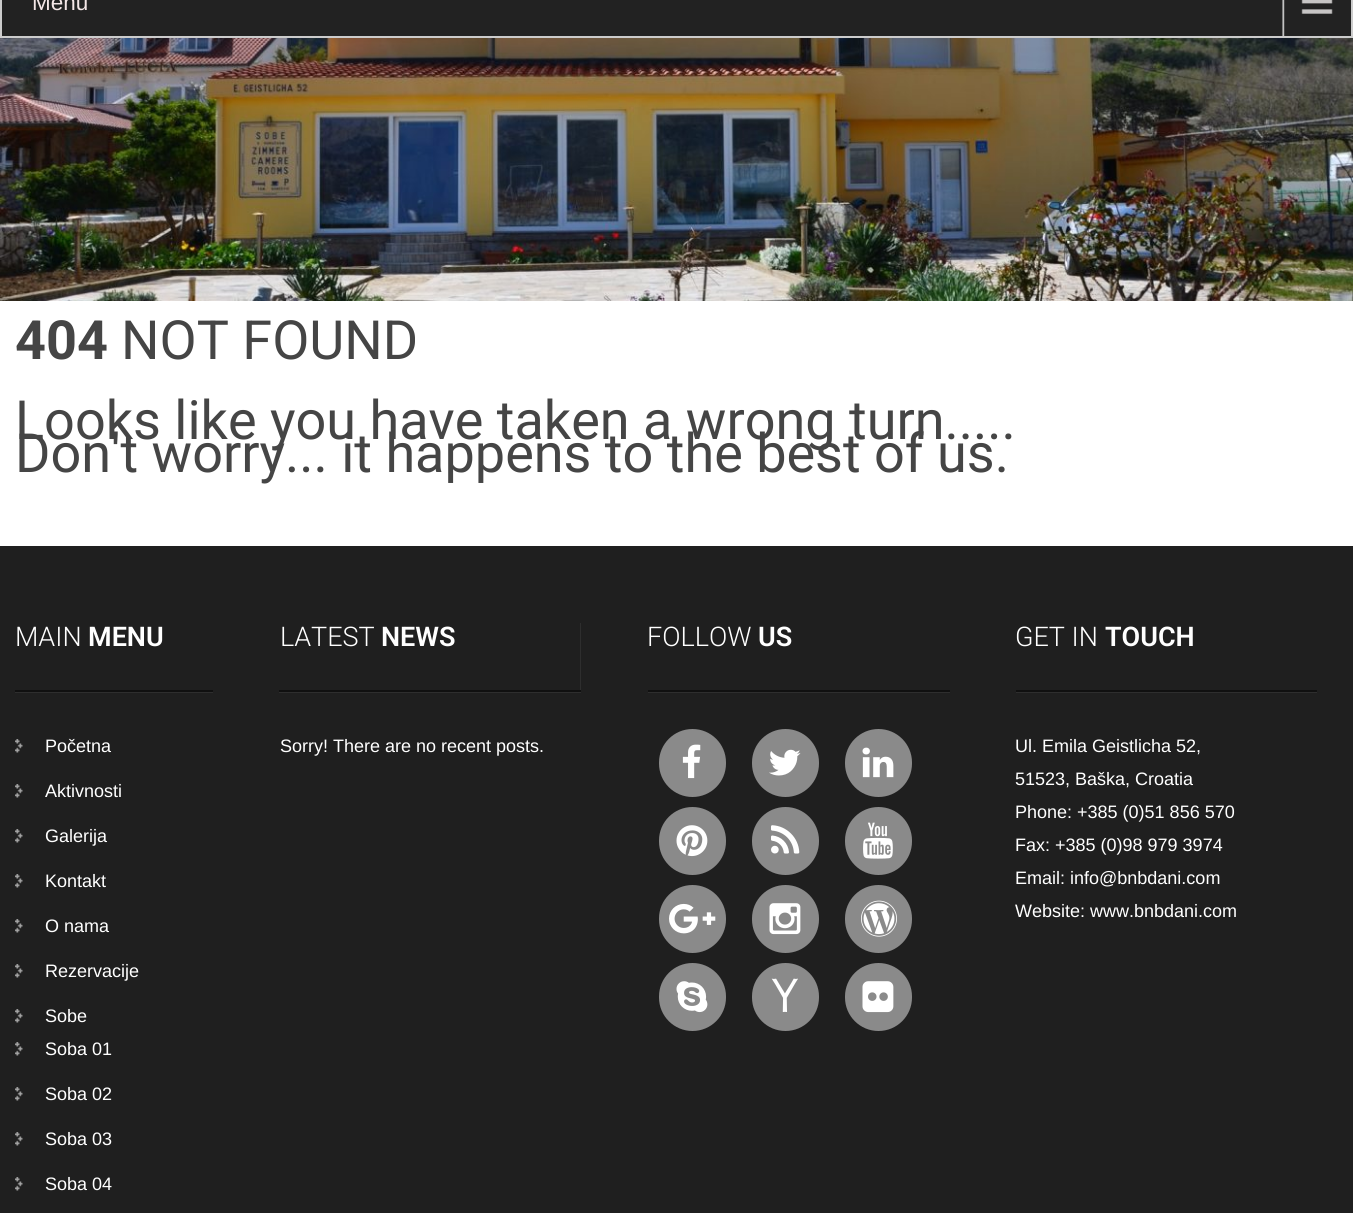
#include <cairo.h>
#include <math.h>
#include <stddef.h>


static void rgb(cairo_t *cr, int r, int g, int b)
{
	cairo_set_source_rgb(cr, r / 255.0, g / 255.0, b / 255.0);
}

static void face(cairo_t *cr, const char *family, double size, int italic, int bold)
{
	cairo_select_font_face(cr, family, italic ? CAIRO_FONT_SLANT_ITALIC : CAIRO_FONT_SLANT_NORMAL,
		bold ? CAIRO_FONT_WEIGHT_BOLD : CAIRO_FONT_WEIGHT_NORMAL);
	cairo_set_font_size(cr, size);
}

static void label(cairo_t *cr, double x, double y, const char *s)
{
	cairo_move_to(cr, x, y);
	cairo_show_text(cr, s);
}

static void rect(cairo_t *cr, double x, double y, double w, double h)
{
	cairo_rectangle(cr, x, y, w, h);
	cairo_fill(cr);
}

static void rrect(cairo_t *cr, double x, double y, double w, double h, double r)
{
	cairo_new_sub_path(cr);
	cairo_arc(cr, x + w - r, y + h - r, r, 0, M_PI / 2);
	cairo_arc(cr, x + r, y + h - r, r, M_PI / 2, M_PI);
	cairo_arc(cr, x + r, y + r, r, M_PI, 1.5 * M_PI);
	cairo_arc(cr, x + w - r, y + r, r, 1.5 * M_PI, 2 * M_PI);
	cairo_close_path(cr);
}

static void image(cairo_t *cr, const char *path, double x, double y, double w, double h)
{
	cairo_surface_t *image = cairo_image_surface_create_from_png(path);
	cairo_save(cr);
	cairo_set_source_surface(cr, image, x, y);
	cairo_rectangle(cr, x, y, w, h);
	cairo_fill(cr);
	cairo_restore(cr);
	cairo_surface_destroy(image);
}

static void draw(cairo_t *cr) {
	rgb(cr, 255, 255, 255);
	cairo_paint(cr);
	rgb(cr, 34, 34, 34);
	rect(cr, 2, 0, 1349, 36);
	image(cr, "image0.png", 1282, 0, 51, 36);
	cairo_rectangle(cr, 1, -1, 1351, 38);
	rgb(cr, 204, 204, 204);
	cairo_stroke(cr);
	face(cr, "Arimo", 22.5, 0, 0);
	rgb(cr, 244, 231, 231);
	label(cr, 32, 10, "Menu");
	image(cr, "image1.png", 0, 38, 1353, 263);
	face(cr, "Roboto", 54, 0, 1);
	rgb(cr, 69, 69, 69);
	label(cr, 15, 359, "404");
	face(cr, "Roboto", 54, 0, 0);
	label(cr, 121, 359, "NOT FOUND");
	label(cr, 15, 439, "Looks like you have taken a wrong turn.....");
	label(cr, 15, 472, "Don't worry... it happens to the best of us.");
	rgb(cr, 31, 31, 31);
	rect(cr, 0, 546, 1353, 667);
	rgb(cr, 46, 46, 46);
	rect(cr, 15, 692, 198, 1);
	rgb(cr, 16, 16, 16);
	rect(cr, 15, 690, 198, 2);
	face(cr, "Roboto Light", 27, 0, 0);
	rgb(cr, 255, 255, 255);
	label(cr, 15, 646, "MAIN");
	face(cr, "Roboto SemiBold", 27, 0, 0);
	label(cr, 88, 646, "MENU");
	image(cr, "image2.png", 15, 739, 8, 14);
	face(cr, "Arimo", 18, 0, 0);
	label(cr, 45, 752, "Početna");
	image(cr, "image2.png", 15, 784, 8, 14);
	label(cr, 45, 797, "Aktivnosti");
	image(cr, "image2.png", 15, 829, 8, 14);
	label(cr, 45, 842, "Galerija");
	image(cr, "image2.png", 15, 874, 8, 14);
	label(cr, 45, 887, "Kontakt");
	image(cr, "image2.png", 15, 919, 8, 14);
	label(cr, 45, 932, "O nama");
	image(cr, "image2.png", 15, 964, 8, 14);
	label(cr, 45, 977, "Rezervacije");
	image(cr, "image2.png", 15, 1009, 8, 14);
	label(cr, 45, 1022, "Sobe");
	image(cr, "image2.png", 15, 1042, 8, 14);
	label(cr, 45, 1055, "Soba 01");
	image(cr, "image2.png", 15, 1087, 8, 14);
	label(cr, 45, 1100, "Soba 02");
	image(cr, "image2.png", 15, 1132, 8, 14);
	label(cr, 45, 1145, "Soba 03");
	image(cr, "image2.png", 15, 1177, 8, 14);
	label(cr, 45, 1190, "Soba 04");
	rgb(cr, 46, 46, 46);
	cairo_new_path(cr);
	cairo_move_to(cr, 279, 692);
	cairo_line_to(cr, 279, 693);
	cairo_line_to(cr, 581, 693);
	cairo_line_to(cr, 581, 623);
	cairo_line_to(cr, 580, 623);
	cairo_line_to(cr, 580, 692);
	cairo_close_path(cr);
	cairo_fill(cr);
	rgb(cr, 16, 16, 16);
	rect(cr, 279, 690, 302, 2);
	face(cr, "Roboto Light", 27, 0, 0);
	rgb(cr, 255, 255, 255);
	label(cr, 280, 646, "LATEST");
	face(cr, "Roboto SemiBold", 27, 0, 0);
	label(cr, 381, 646, "NEWS");
	face(cr, "Arimo", 18, 0, 0);
	label(cr, 280, 752, "Sorry! There are no recent posts.");
	rgb(cr, 46, 46, 46);
	cairo_new_path(cr);
	cairo_move_to(cr, 648, 692);
	cairo_line_to(cr, 648, 693);
	cairo_line_to(cr, 950, 693);
	cairo_line_to(cr, 950, 623);
	cairo_line_to(cr, 950, 692);
	cairo_close_path(cr);
	cairo_fill(cr);
	rgb(cr, 16, 16, 16);
	rect(cr, 648, 690, 302, 2);
	face(cr, "Roboto Light", 27, 0, 0);
	rgb(cr, 255, 255, 255);
	label(cr, 647, 646, "FOLLOW");
	face(cr, "Roboto SemiBold", 27, 0, 0);
	label(cr, 758, 646, "US");
	rgb(cr, 138, 138, 138);
	rrect(cr, 659, 729, 67, 68, 33.5);
	cairo_fill(cr);
	image(cr, "image3.png", 682, 744, 19, 35);
	rrect(cr, 752, 729, 67, 68, 33.5);
	cairo_fill(cr);
	image(cr, "image4.png", 769, 749, 32, 27);
	rrect(cr, 845, 729, 67, 68, 33.5);
	cairo_fill(cr);
	image(cr, "image5.png", 862, 747, 32, 31);
	rrect(cr, 659, 807, 67, 68, 33.5);
	cairo_fill(cr);
	image(cr, "image6.png", 676, 825, 32, 32);
	rrect(cr, 752, 807, 67, 68, 33.5);
	cairo_fill(cr);
	image(cr, "image7.png", 771, 825, 29, 29);
	rrect(cr, 845, 807, 67, 68, 33.5);
	cairo_fill(cr);
	image(cr, "image8.png", 863, 822, 30, 37);
	rrect(cr, 659, 885, 67, 68, 33.5);
	cairo_fill(cr);
	image(cr, "image9.png", 669, 903, 47, 31);
	rrect(cr, 752, 885, 67, 68, 33.5);
	cairo_fill(cr);
	image(cr, "image10.png", 769, 903, 32, 32);
	rrect(cr, 845, 885, 67, 68, 33.5);
	cairo_fill(cr);
	image(cr, "image11.png", 861, 900, 36, 37);
	rrect(cr, 659, 963, 67, 68, 33.5);
	cairo_fill(cr);
	image(cr, "image12.png", 676, 981, 32, 32);
	rrect(cr, 752, 963, 67, 68, 33.5);
	cairo_fill(cr);
	image(cr, "image13.png", 771, 978, 27, 34);
	rrect(cr, 845, 963, 67, 68, 33.5);
	cairo_fill(cr);
	image(cr, "image14.png", 862, 981, 32, 32);
	rgb(cr, 46, 46, 46);
	rect(cr, 1016, 692, 301, 1);
	rgb(cr, 16, 16, 16);
	rect(cr, 1016, 690, 301, 2);
	face(cr, "Roboto Light", 27, 0, 0);
	rgb(cr, 255, 255, 255);
	label(cr, 1015, 646, "GET IN");
	face(cr, "Roboto SemiBold", 27, 0, 0);
	label(cr, 1105, 646, "TOUCH");
	face(cr, "Arimo", 18, 0, 0);
	label(cr, 1015, 752, "Ul. Emila Geistlicha 52,");
	label(cr, 1015, 785, "51523, Baška, Croatia");
	label(cr, 1015, 818, "Phone: +385 (0)51 856 570");
	label(cr, 1015, 851, "Fax: +385 (0)98 979 3974");
	label(cr, 1015, 884, "Email: info@bnbdani.com");
	label(cr, 1015, 917, "Website: www.bnbdani.com");
}

int main(void) {
	cairo_surface_t *surface = cairo_image_surface_create(CAIRO_FORMAT_RGB24, 1353, 1213);
	cairo_t *cr = cairo_create(surface);
	cairo_font_options_t *options = cairo_font_options_create();
	cairo_font_options_set_hint_metrics(options, CAIRO_HINT_METRICS_OFF);
	cairo_font_options_set_hint_style(options, CAIRO_HINT_STYLE_NONE);
	cairo_set_font_options(cr, options);
	cairo_set_miter_limit(cr, 4);
	draw(cr);
	cairo_surface_write_to_png(surface, "render.png");
	cairo_font_options_destroy(options);
	cairo_destroy(cr);
	cairo_surface_destroy(surface);
	return 0;
}
